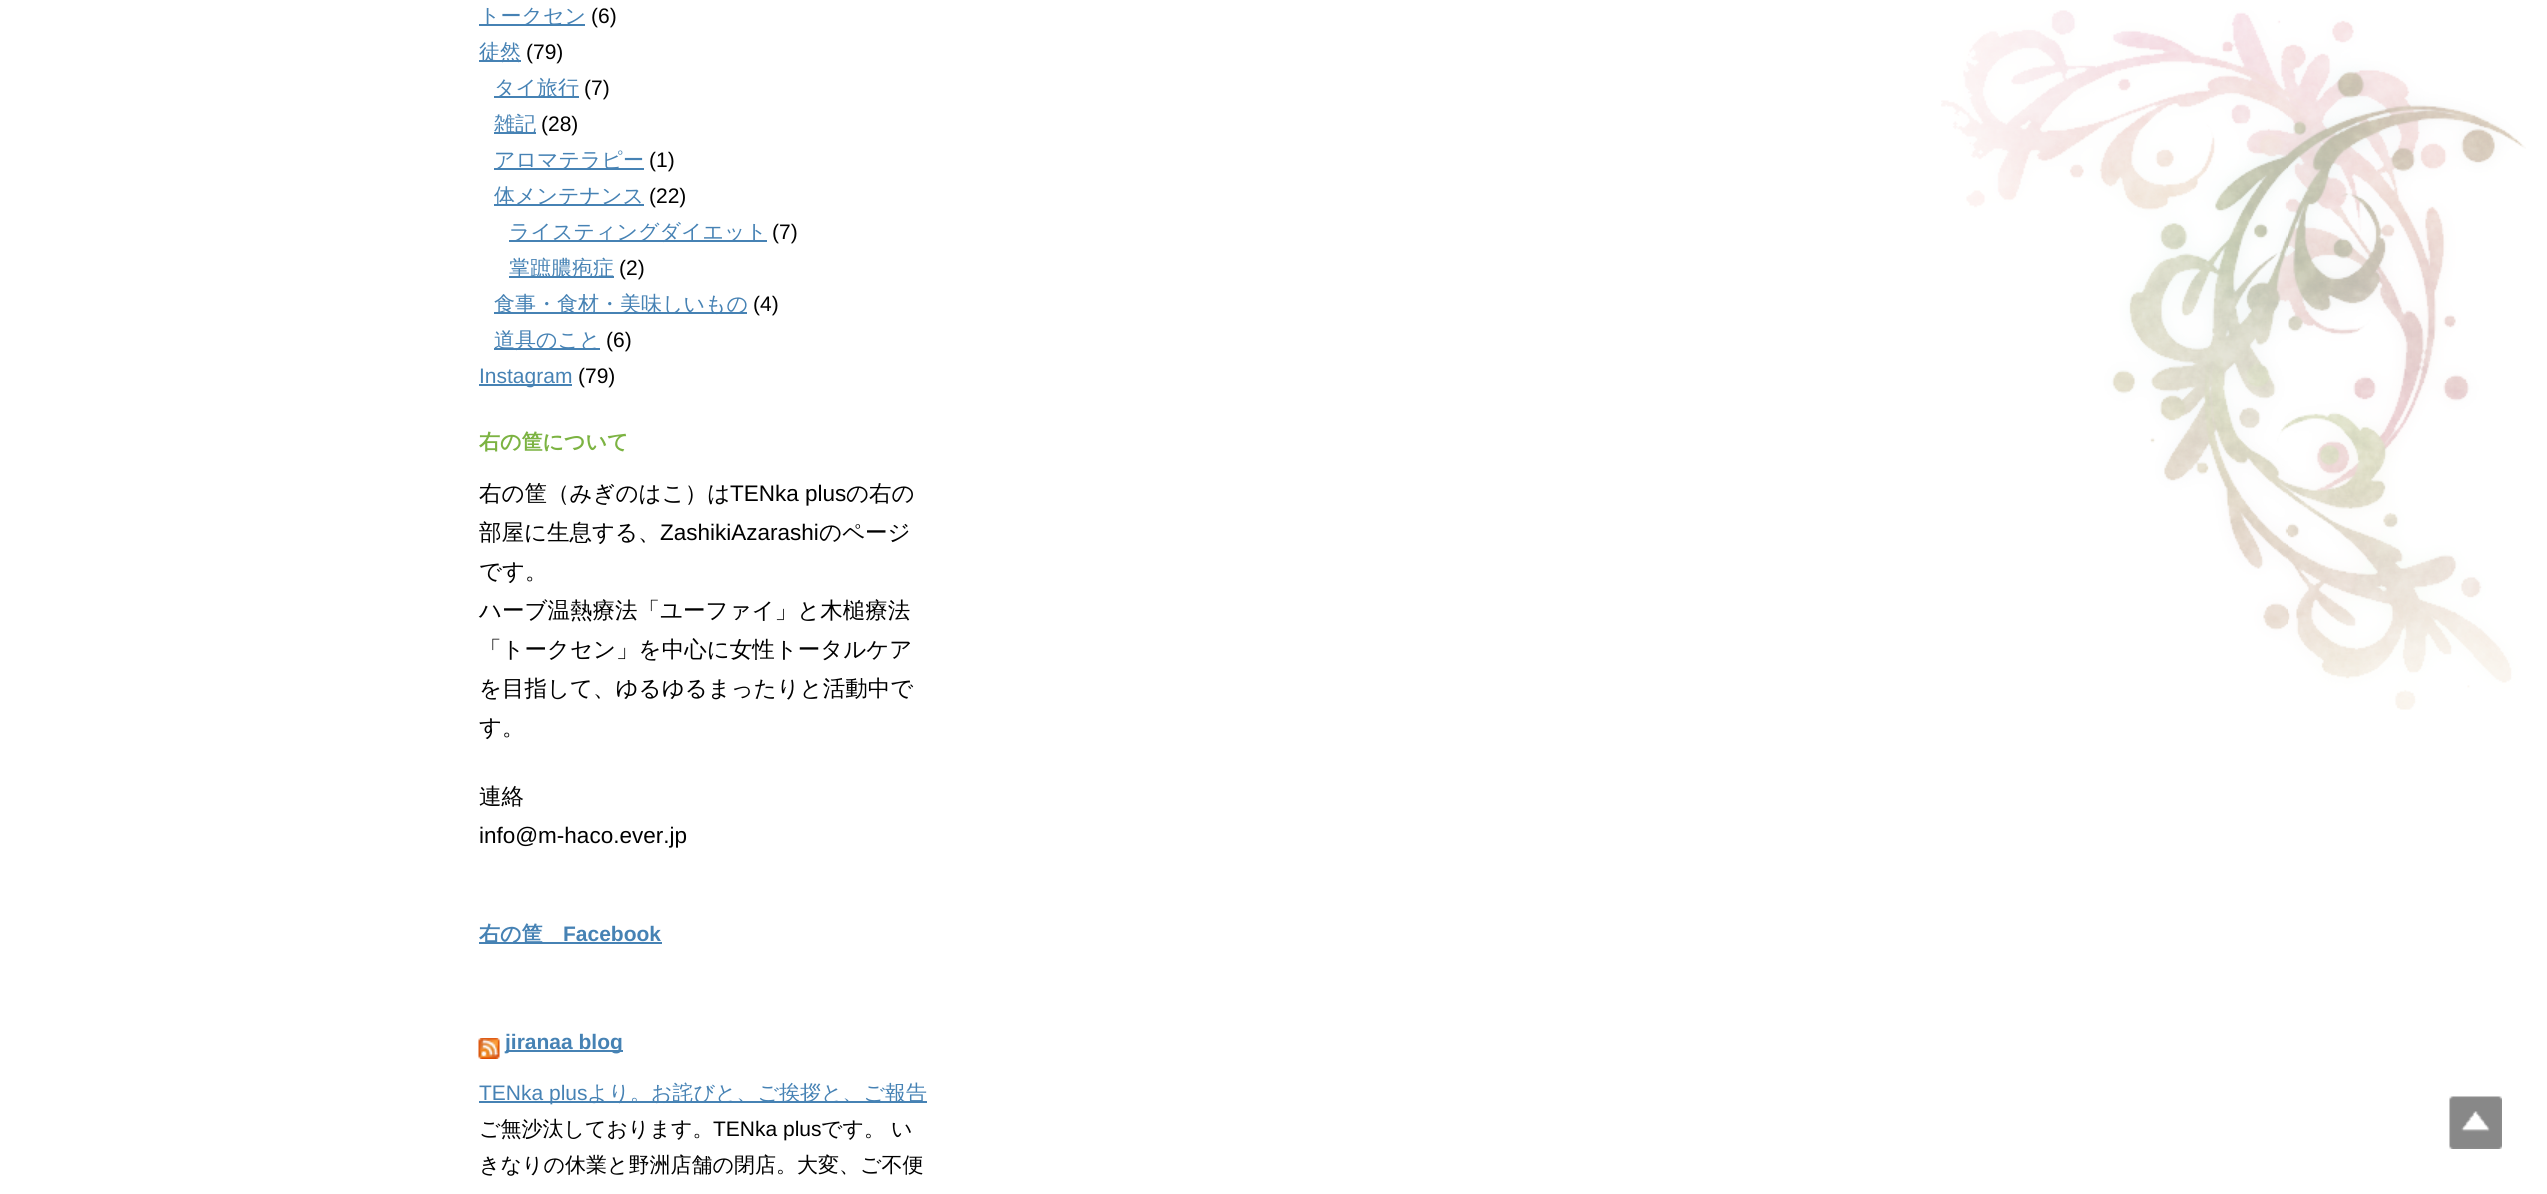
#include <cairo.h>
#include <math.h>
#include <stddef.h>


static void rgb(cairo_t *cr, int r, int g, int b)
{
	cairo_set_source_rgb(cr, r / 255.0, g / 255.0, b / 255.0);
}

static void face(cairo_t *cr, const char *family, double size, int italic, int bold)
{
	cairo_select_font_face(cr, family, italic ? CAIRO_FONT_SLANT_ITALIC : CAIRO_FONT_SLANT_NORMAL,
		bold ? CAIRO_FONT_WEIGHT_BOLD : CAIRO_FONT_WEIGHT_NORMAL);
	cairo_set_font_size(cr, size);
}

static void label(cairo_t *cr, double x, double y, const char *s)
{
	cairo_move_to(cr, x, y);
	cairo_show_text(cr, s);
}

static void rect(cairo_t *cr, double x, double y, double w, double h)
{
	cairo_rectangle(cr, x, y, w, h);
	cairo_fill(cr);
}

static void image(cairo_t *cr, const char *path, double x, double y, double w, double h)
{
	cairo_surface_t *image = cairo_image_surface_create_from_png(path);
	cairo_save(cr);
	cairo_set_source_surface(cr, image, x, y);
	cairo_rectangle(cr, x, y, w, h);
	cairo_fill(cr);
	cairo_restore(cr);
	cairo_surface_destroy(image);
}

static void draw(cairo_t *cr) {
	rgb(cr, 255, 255, 255);
	cairo_paint(cr);
	image(cr, "image0.png", 1941, 10, 585, 700);
	rgb(cr, 70, 130, 180);
	rect(cr, 479, 24, 106, 2);
	face(cr, "WenQuanYi Zen Hei Medium", 21, 0, 0);
	label(cr, 479, 23, "トークセン");
	face(cr, "Liberation Sans", 21, 0, 0);
	rgb(cr, 0, 0, 0);
	label(cr, 591, 23, "(6)");
	rgb(cr, 70, 130, 180);
	rect(cr, 479, 60, 42, 2);
	face(cr, "WenQuanYi Zen Hei Medium", 21, 0, 0);
	label(cr, 479, 59, "徒然");
	face(cr, "Liberation Sans", 21, 0, 0);
	rgb(cr, 0, 0, 0);
	label(cr, 526, 59, "(79)");
	rgb(cr, 70, 130, 180);
	rect(cr, 494, 96, 85, 2);
	face(cr, "WenQuanYi Zen Hei Medium", 21, 0, 0);
	label(cr, 494, 95, "タイ旅行");
	face(cr, "Liberation Sans", 21, 0, 0);
	rgb(cr, 0, 0, 0);
	label(cr, 584, 95, "(7)");
	rgb(cr, 70, 130, 180);
	rect(cr, 494, 132, 42, 2);
	face(cr, "WenQuanYi Zen Hei Medium", 21, 0, 0);
	label(cr, 494, 131, "雑記");
	face(cr, "Liberation Sans", 21, 0, 0);
	rgb(cr, 0, 0, 0);
	label(cr, 541, 131, "(28)");
	rgb(cr, 70, 130, 180);
	rect(cr, 494, 168, 150, 2);
	face(cr, "WenQuanYi Zen Hei Medium", 21, 0, 0);
	label(cr, 494, 167, "アロマテラピー");
	face(cr, "Liberation Sans", 21, 0, 0);
	rgb(cr, 0, 0, 0);
	label(cr, 649, 167, "(1)");
	rgb(cr, 70, 130, 180);
	rect(cr, 494, 204, 150, 2);
	face(cr, "WenQuanYi Zen Hei Medium", 21, 0, 0);
	label(cr, 494, 203, "体メンテナンス");
	face(cr, "Liberation Sans", 21, 0, 0);
	rgb(cr, 0, 0, 0);
	label(cr, 649, 203, "(22)");
	rgb(cr, 70, 130, 180);
	rect(cr, 509, 240, 258, 2);
	face(cr, "WenQuanYi Zen Hei Medium", 21, 0, 0);
	label(cr, 509, 239, "ライスティングダイエット");
	face(cr, "Liberation Sans", 21, 0, 0);
	rgb(cr, 0, 0, 0);
	label(cr, 772, 239, "(7)");
	rgb(cr, 70, 130, 180);
	rect(cr, 509, 276, 105, 2);
	face(cr, "WenQuanYi Zen Hei Medium", 21, 0, 0);
	label(cr, 509, 275, "掌蹠膿疱症");
	face(cr, "Liberation Sans", 21, 0, 0);
	rgb(cr, 0, 0, 0);
	label(cr, 619, 275, "(2)");
	rgb(cr, 70, 130, 180);
	rect(cr, 494, 312, 253, 2);
	face(cr, "WenQuanYi Zen Hei Medium", 21, 0, 0);
	label(cr, 494, 311, "食事・食材・美味しいもの");
	face(cr, "Liberation Sans", 21, 0, 0);
	rgb(cr, 0, 0, 0);
	label(cr, 753, 311, "(4)");
	rgb(cr, 70, 130, 180);
	rect(cr, 494, 348, 106, 2);
	face(cr, "WenQuanYi Zen Hei Medium", 21, 0, 0);
	label(cr, 494, 347, "道具のこと");
	face(cr, "Liberation Sans", 21, 0, 0);
	rgb(cr, 0, 0, 0);
	label(cr, 606, 347, "(6)");
	rgb(cr, 70, 130, 180);
	rect(cr, 479, 384, 93, 2);
	label(cr, 479, 383, "Instagram");
	rgb(cr, 0, 0, 0);
	label(cr, 578, 383, "(79)");
	face(cr, "WenQuanYi Zen Hei", 21, 0, 1);
	rgb(cr, 124, 179, 66);
	label(cr, 479, 449, "右の筐について");
	face(cr, "WenQuanYi Zen Hei Medium", 22.5, 0, 0);
	rgb(cr, 0, 0, 0);
	label(cr, 479, 501, "右の筐（みぎのはこ）は");
	face(cr, "Liberation Sans", 22.5, 0, 0);
	label(cr, 730, 501, "TENka plus");
	face(cr, "WenQuanYi Zen Hei Medium", 22.5, 0, 0);
	label(cr, 846, 501, "の右の");
	label(cr, 479, 540, "部屋に生息する、");
	face(cr, "Liberation Sans", 22.5, 0, 0);
	label(cr, 660, 540, "ZashikiAzarashi");
	face(cr, "WenQuanYi Zen Hei Medium", 22.5, 0, 0);
	label(cr, 819, 540, "のページ");
	label(cr, 479, 579, "です。");
	label(cr, 479, 618, "ハーブ温熱療法「ユーファイ」と木槌療法");
	label(cr, 479, 657, "「トークセン」を中心に女性トータルケア");
	label(cr, 479, 696, "を目指して、ゆるゆるまったりと活動中で");
	label(cr, 479, 735, "す。");
	label(cr, 479, 804, "連絡");
	face(cr, "Liberation Sans", 22.5, 0, 0);
	label(cr, 479, 843, "info@m-haco.ever.jp");
	rgb(cr, 70, 130, 180);
	rect(cr, 479, 942, 183, 2);
	face(cr, "WenQuanYi Zen Hei", 21, 0, 1);
	label(cr, 479, 941, "右の筐");
	face(cr, "Liberation Sans", 21, 0, 1);
	label(cr, 563, 941, "Facebook");
	image(cr, "image1.png", 478, 1038, 22, 21);
	rect(cr, 506, 1050, 117, 2);
	label(cr, 505, 1049, "jiranaa blog");
	rect(cr, 479, 1101, 448, 2);
	face(cr, "Liberation Sans", 21, 0, 0);
	label(cr, 479, 1100, "TENka plus");
	face(cr, "WenQuanYi Zen Hei Medium", 21, 0, 0);
	label(cr, 587, 1100, "より。お詫びと、ご挨拶と、ご報告");
	rgb(cr, 0, 0, 0);
	label(cr, 479, 1136, "ご無沙汰しております。");
	face(cr, "Liberation Sans", 21, 0, 0);
	label(cr, 713, 1136, "TENka plus");
	face(cr, "WenQuanYi Zen Hei Medium", 21, 0, 0);
	label(cr, 821, 1136, "です。");
	label(cr, 891, 1136, "い");
	label(cr, 479, 1172, "きなりの休業と野洲店舗の閉店。大変、ご不便");
	image(cr, "image2.png", 2449, 1096, 53, 53);
}

int main(void) {
	cairo_surface_t *surface = cairo_image_surface_create(CAIRO_FORMAT_RGB24, 2547, 1194);
	cairo_t *cr = cairo_create(surface);
	cairo_font_options_t *options = cairo_font_options_create();
	cairo_font_options_set_hint_metrics(options, CAIRO_HINT_METRICS_OFF);
	cairo_font_options_set_hint_style(options, CAIRO_HINT_STYLE_NONE);
	cairo_set_font_options(cr, options);
	cairo_set_miter_limit(cr, 4);
	draw(cr);
	cairo_surface_write_to_png(surface, "render.png");
	cairo_font_options_destroy(options);
	cairo_destroy(cr);
	cairo_surface_destroy(surface);
	return 0;
}
